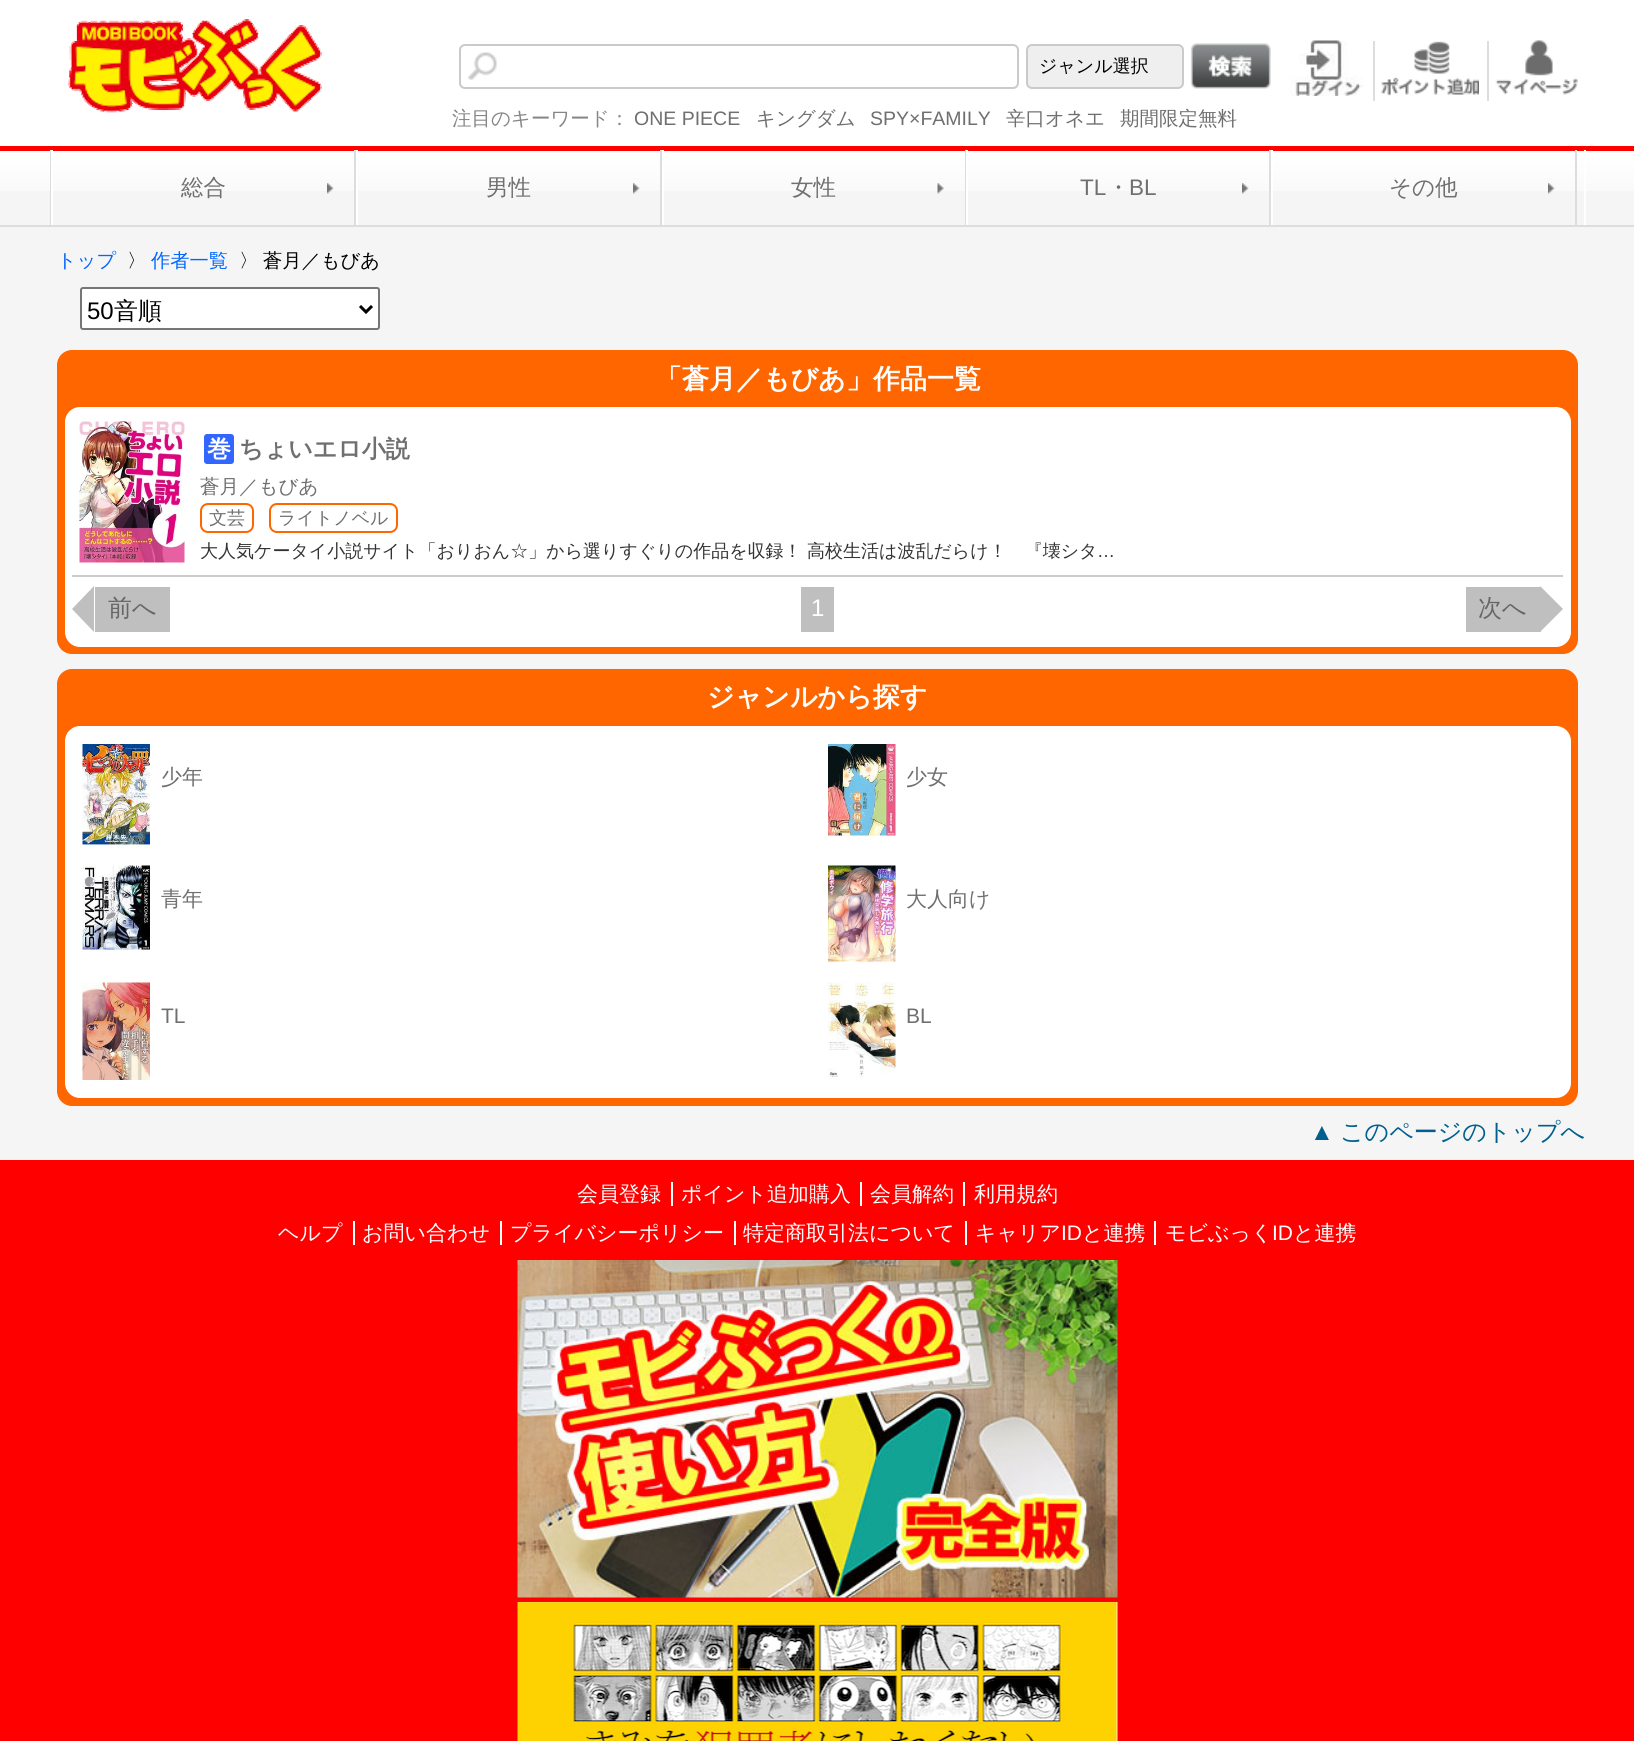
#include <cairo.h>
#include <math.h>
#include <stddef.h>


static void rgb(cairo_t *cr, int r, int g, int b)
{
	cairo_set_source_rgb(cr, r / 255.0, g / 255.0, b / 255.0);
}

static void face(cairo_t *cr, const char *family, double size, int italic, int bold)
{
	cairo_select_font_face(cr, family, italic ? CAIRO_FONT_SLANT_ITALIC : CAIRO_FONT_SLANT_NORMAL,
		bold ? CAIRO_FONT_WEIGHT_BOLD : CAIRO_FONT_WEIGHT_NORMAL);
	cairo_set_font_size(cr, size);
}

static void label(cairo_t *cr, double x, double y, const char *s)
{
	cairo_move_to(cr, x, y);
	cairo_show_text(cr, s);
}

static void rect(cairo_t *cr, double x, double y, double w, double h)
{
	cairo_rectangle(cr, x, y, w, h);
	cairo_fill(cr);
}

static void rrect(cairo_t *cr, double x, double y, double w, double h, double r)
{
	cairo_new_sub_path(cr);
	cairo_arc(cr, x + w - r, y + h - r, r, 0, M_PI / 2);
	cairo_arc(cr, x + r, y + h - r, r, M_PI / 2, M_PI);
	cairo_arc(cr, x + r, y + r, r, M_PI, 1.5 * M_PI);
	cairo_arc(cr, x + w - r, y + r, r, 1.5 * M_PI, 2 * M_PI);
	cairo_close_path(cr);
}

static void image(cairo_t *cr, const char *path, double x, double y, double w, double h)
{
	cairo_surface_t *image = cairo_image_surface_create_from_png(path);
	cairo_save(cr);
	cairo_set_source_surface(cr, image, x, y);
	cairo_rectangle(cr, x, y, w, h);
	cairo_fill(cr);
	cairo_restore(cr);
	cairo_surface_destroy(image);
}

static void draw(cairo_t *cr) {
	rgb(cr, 245, 245, 245);
	cairo_paint(cr);
	rgb(cr, 255, 255, 255);
	rect(cr, 0, 0, 1634, 146);
	image(cr, "image0.png", 68, 19, 254, 94);
	image(cr, "image1.png", 468, 52, 29, 28);
	rrect(cr, 460, 45, 558, 43, 5);
	rgb(cr, 202, 202, 202);
	cairo_stroke(cr);
	rgb(cr, 239, 239, 239);
	rrect(cr, 1027, 45, 156, 43, 5);
	cairo_fill_preserve(cr);
	rgb(cr, 202, 202, 202);
	cairo_stroke(cr);
	face(cr, "WenQuanYi Zen Hei Medium", 18, 0, 0);
	rgb(cr, 0, 0, 0);
	label(cr, 1039, 72, "ジャンル選択");
	image(cr, "image2.png", 1190, 43, 81, 46);
	image(cr, "image3.png", 1290, 40, 74, 56);
	rgb(cr, 221, 221, 221);
	rect(cr, 1373, 41, 2, 60);
	image(cr, "image4.png", 1381, 41, 98, 55);
	rect(cr, 1487, 41, 2, 60);
	image(cr, "image5.png", 1495, 40, 83, 55);
	face(cr, "WenQuanYi Zen Hei Medium", 19.5, 0, 0);
	rgb(cr, 134, 134, 134);
	label(cr, 452, 125, "注目のキーワード：");
	face(cr, "Liberation Sans", 19.5, 0, 0);
	rgb(cr, 111, 111, 111);
	label(cr, 634, 125, "ONE PIECE");
	face(cr, "WenQuanYi Zen Hei Medium", 19.5, 0, 0);
	label(cr, 756, 125, "キングダム");
	face(cr, "Liberation Sans", 19.5, 0, 0);
	label(cr, 870, 125, "SPY×FAMILY");
	face(cr, "WenQuanYi Zen Hei Medium", 19.5, 0, 0);
	label(cr, 1006, 125, "辛口オネエ");
	label(cr, 1120, 125, "期間限定無料");
	image(cr, "image6.png", 0, 151, 1634, 40);
	rgb(cr, 255, 0, 0);
	rect(cr, 0, 146, 1634, 5);
	rgb(cr, 221, 221, 221);
	rect(cr, 0, 225, 1634, 2);
	rgb(cr, 255, 255, 255);
	rect(cr, 1584, 150, 2, 75);
	rgb(cr, 221, 221, 221);
	rect(cr, 50, 150, 1, 75);
	rect(cr, 354, 150, 2, 75);
	rgb(cr, 255, 255, 255);
	rect(cr, 51, 150, 2, 75);
	image(cr, "image7.png", 327, 183, 7, 11);
	face(cr, "WenQuanYi Zen Hei Medium", 22.5, 0, 0);
	rgb(cr, 111, 111, 111);
	label(cr, 181, 195, "総合");
	rgb(cr, 221, 221, 221);
	rect(cr, 660, 150, 2, 75);
	rgb(cr, 255, 255, 255);
	rect(cr, 356, 150, 2, 75);
	image(cr, "image8.png", 633, 183, 7, 11);
	rgb(cr, 111, 111, 111);
	label(cr, 486, 195, "男性");
	rgb(cr, 221, 221, 221);
	rect(cr, 965, 150, 1, 75);
	rgb(cr, 255, 255, 255);
	rect(cr, 662, 150, 2, 75);
	image(cr, "image9.png", 937, 183, 7, 11);
	rgb(cr, 111, 111, 111);
	label(cr, 791, 195, "女性");
	rgb(cr, 221, 221, 221);
	rect(cr, 1269, 150, 2, 75);
	rgb(cr, 255, 255, 255);
	rect(cr, 966, 150, 2, 75);
	image(cr, "image7.png", 1242, 183, 7, 11);
	face(cr, "Liberation Sans", 22.5, 0, 0);
	rgb(cr, 111, 111, 111);
	label(cr, 1080, 195, "TL");
	face(cr, "WenQuanYi Zen Hei Medium", 22.5, 0, 0);
	label(cr, 1107, 195, "・");
	face(cr, "Liberation Sans", 22.5, 0, 0);
	label(cr, 1129, 195, "BL");
	rgb(cr, 221, 221, 221);
	rect(cr, 1575, 150, 2, 75);
	rgb(cr, 255, 255, 255);
	rect(cr, 1271, 150, 2, 75);
	image(cr, "image8.png", 1548, 183, 7, 11);
	face(cr, "WenQuanYi Zen Hei Medium", 22.5, 0, 0);
	rgb(cr, 111, 111, 111);
	label(cr, 1389, 195, "その他");
	face(cr, "WenQuanYi Zen Hei Medium", 19.25, 0, 0);
	rgb(cr, 0, 102, 255);
	label(cr, 57, 267, "トップ");
	rgb(cr, 0, 0, 0);
	label(cr, 127, 267, "〉");
	rgb(cr, 0, 102, 255);
	label(cr, 151, 267, "作者一覧");
	rgb(cr, 0, 0, 0);
	label(cr, 239, 267, "〉");
	label(cr, 263, 267, "蒼月／もびあ");
	rgb(cr, 255, 255, 255);
	rrect(cr, 81, 288, 298, 41, 2);
	cairo_fill_preserve(cr);
	rgb(cr, 118, 118, 118);
	cairo_stroke(cr);
	cairo_new_path(cr);
	cairo_move_to(cr, 360, 306);
	cairo_line_to(cr, 366, 312);
	cairo_line_to(cr, 372, 306);
	rgb(cr, 0, 0, 0);
	cairo_set_line_width(cr, 3);
	cairo_stroke(cr);
	face(cr, "Liberation Sans", 24, 0, 0);
	label(cr, 87, 319, "50");
	face(cr, "WenQuanYi Zen Hei Medium", 24, 0, 0);
	label(cr, 114, 319, "音順");
	rgb(cr, 255, 102, 0);
	rrect(cr, 57, 350, 1521, 304, 15);
	cairo_fill(cr);
	face(cr, "WenQuanYi Zen Hei", 27, 0, 1);
	rgb(cr, 255, 255, 255);
	label(cr, 655, 388, "「蒼月／もびあ」作品一覧");
	rrect(cr, 65, 407, 1506, 240, 15);
	cairo_fill(cr);
	rgb(cr, 204, 204, 204);
	rect(cr, 72, 575, 1491, 2);
	image(cr, "image10.png", 79, 421, 106, 142);
	rgb(cr, 51, 102, 255);
	rrect(cr, 204, 434, 30, 30, 3);
	cairo_fill(cr);
	face(cr, "WenQuanYi Zen Hei", 24, 0, 1);
	rgb(cr, 255, 255, 255);
	label(cr, 207, 457, "巻");
	rgb(cr, 111, 111, 111);
	label(cr, 239, 457, "ちょいエロ小説");
	face(cr, "WenQuanYi Zen Hei Medium", 19.5, 0, 0);
	label(cr, 200, 493, "蒼月／もびあ");
	rrect(cr, 201, 504, 52, 28, 7);
	rgb(cr, 255, 102, 0);
	cairo_set_line_width(cr, 2);
	cairo_stroke(cr);
	face(cr, "WenQuanYi Zen Hei Medium", 18, 0, 0);
	rgb(cr, 111, 111, 111);
	label(cr, 209, 524, "文芸");
	rrect(cr, 270, 504, 127, 28, 7);
	rgb(cr, 255, 102, 0);
	cairo_stroke(cr);
	rgb(cr, 111, 111, 111);
	label(cr, 278, 524, "ライトノベル");
	rgb(cr, 51, 51, 51);
	label(cr, 200, 557, "大人気ケータイ小説サイト「おりおん☆」から選りすぐりの作品を収録！ 高校生活は波乱だらけ！　『壊シタ");
	face(cr, "Liberation Sans", 18, 0, 0);
	label(cr, 1097, 557, "…");
	rgb(cr, 191, 191, 191);
	rect(cr, 95, 587, 75, 45);
	cairo_new_path(cr);
	cairo_move_to(cr, 94, 586);
	cairo_line_to(cr, 94, 632);
	cairo_line_to(cr, 72, 609);
	cairo_close_path(cr);
	cairo_fill(cr);
	face(cr, "WenQuanYi Zen Hei Medium", 24, 0, 0);
	rgb(cr, 102, 102, 102);
	label(cr, 108, 616, "前へ");
	rgb(cr, 191, 191, 191);
	rect(cr, 801, 587, 33, 45);
	face(cr, "Liberation Sans", 24, 0, 0);
	rgb(cr, 255, 255, 255);
	label(cr, 811, 616, "1");
	rgb(cr, 191, 191, 191);
	rect(cr, 1466, 587, 75, 45);
	face(cr, "WenQuanYi Zen Hei Medium", 24, 0, 0);
	rgb(cr, 102, 102, 102);
	label(cr, 1478, 616, "次へ");
	rgb(cr, 191, 191, 191);
	cairo_new_path(cr);
	cairo_move_to(cr, 1540, 632);
	cairo_line_to(cr, 1540, 586);
	cairo_line_to(cr, 1563, 609);
	cairo_close_path(cr);
	cairo_fill(cr);
	rgb(cr, 255, 102, 0);
	rrect(cr, 57, 669, 1521, 437, 15);
	cairo_fill(cr);
	face(cr, "WenQuanYi Zen Hei", 27, 0, 1);
	rgb(cr, 255, 255, 255);
	label(cr, 707, 706, "ジャンルから探す");
	rrect(cr, 65, 726, 1506, 372, 15);
	cairo_fill(cr);
	image(cr, "image11.png", 82, 744, 68, 101);
	face(cr, "WenQuanYi Zen Hei Medium", 21, 0, 0);
	rgb(cr, 111, 111, 111);
	label(cr, 161, 784, "少年");
	image(cr, "image12.png", 828, 744, 68, 92);
	label(cr, 906, 784, "少女");
	image(cr, "image13.png", 82, 865, 68, 85);
	label(cr, 161, 906, "青年");
	image(cr, "image14.png", 828, 865, 68, 97);
	label(cr, 906, 906, "大人向け");
	image(cr, "image15.png", 82, 982, 68, 98);
	face(cr, "Liberation Sans", 21, 0, 0);
	label(cr, 161, 1023, "TL");
	image(cr, "image16.png", 828, 982, 68, 95);
	label(cr, 906, 1023, "BL");
	face(cr, "Liberation Sans", 24, 0, 0);
	rgb(cr, 0, 95, 142);
	label(cr, 1310, 1140, "▲");
	face(cr, "WenQuanYi Zen Hei Medium", 24, 0, 0);
	label(cr, 1340, 1140, "このページのトップへ");
	rgb(cr, 255, 0, 0);
	rect(cr, 0, 1160, 1634, 581);
	face(cr, "WenQuanYi Zen Hei Medium", 21, 0, 0);
	rgb(cr, 255, 255, 255);
	label(cr, 577, 1201, "会員登録");
	rect(cr, 671, 1182, 2, 24);
	label(cr, 681, 1201, "ポイント追加購入");
	rect(cr, 860, 1182, 2, 24);
	label(cr, 870, 1201, "会員解約");
	rect(cr, 963, 1182, 2, 24);
	label(cr, 974, 1201, "利用規約");
	label(cr, 278, 1240, "ヘルプ");
	rect(cr, 353, 1221, 2, 24);
	label(cr, 362, 1240, "お問い合わせ");
	rect(cr, 500, 1221, 2, 24);
	label(cr, 510, 1240, "プライバシーポリシー");
	rect(cr, 734, 1221, 2, 24);
	label(cr, 743, 1240, "特定商取引法について");
	rect(cr, 965, 1221, 2, 24);
	label(cr, 975, 1240, "キャリア");
	face(cr, "Liberation Sans", 21, 0, 0);
	label(cr, 1061, 1240, "ID");
	face(cr, "WenQuanYi Zen Hei Medium", 21, 0, 0);
	label(cr, 1082, 1240, "と連携");
	rect(cr, 1154, 1221, 2, 24);
	label(cr, 1165, 1240, "モビぶっく");
	face(cr, "Liberation Sans", 21, 0, 0);
	label(cr, 1272, 1240, "ID");
	face(cr, "WenQuanYi Zen Hei Medium", 21, 0, 0);
	label(cr, 1293, 1240, "と連携");
	image(cr, "image17.png", 517, 1260, 601, 338);
	image(cr, "image18.png", 517, 1602, 601, 139);
}

int main(void) {
	cairo_surface_t *surface = cairo_image_surface_create(CAIRO_FORMAT_RGB24, 1634, 1741);
	cairo_t *cr = cairo_create(surface);
	cairo_font_options_t *options = cairo_font_options_create();
	cairo_font_options_set_hint_metrics(options, CAIRO_HINT_METRICS_OFF);
	cairo_font_options_set_hint_style(options, CAIRO_HINT_STYLE_NONE);
	cairo_set_font_options(cr, options);
	cairo_set_miter_limit(cr, 4);
	draw(cr);
	cairo_surface_write_to_png(surface, "render.png");
	cairo_font_options_destroy(options);
	cairo_destroy(cr);
	cairo_surface_destroy(surface);
	return 0;
}
